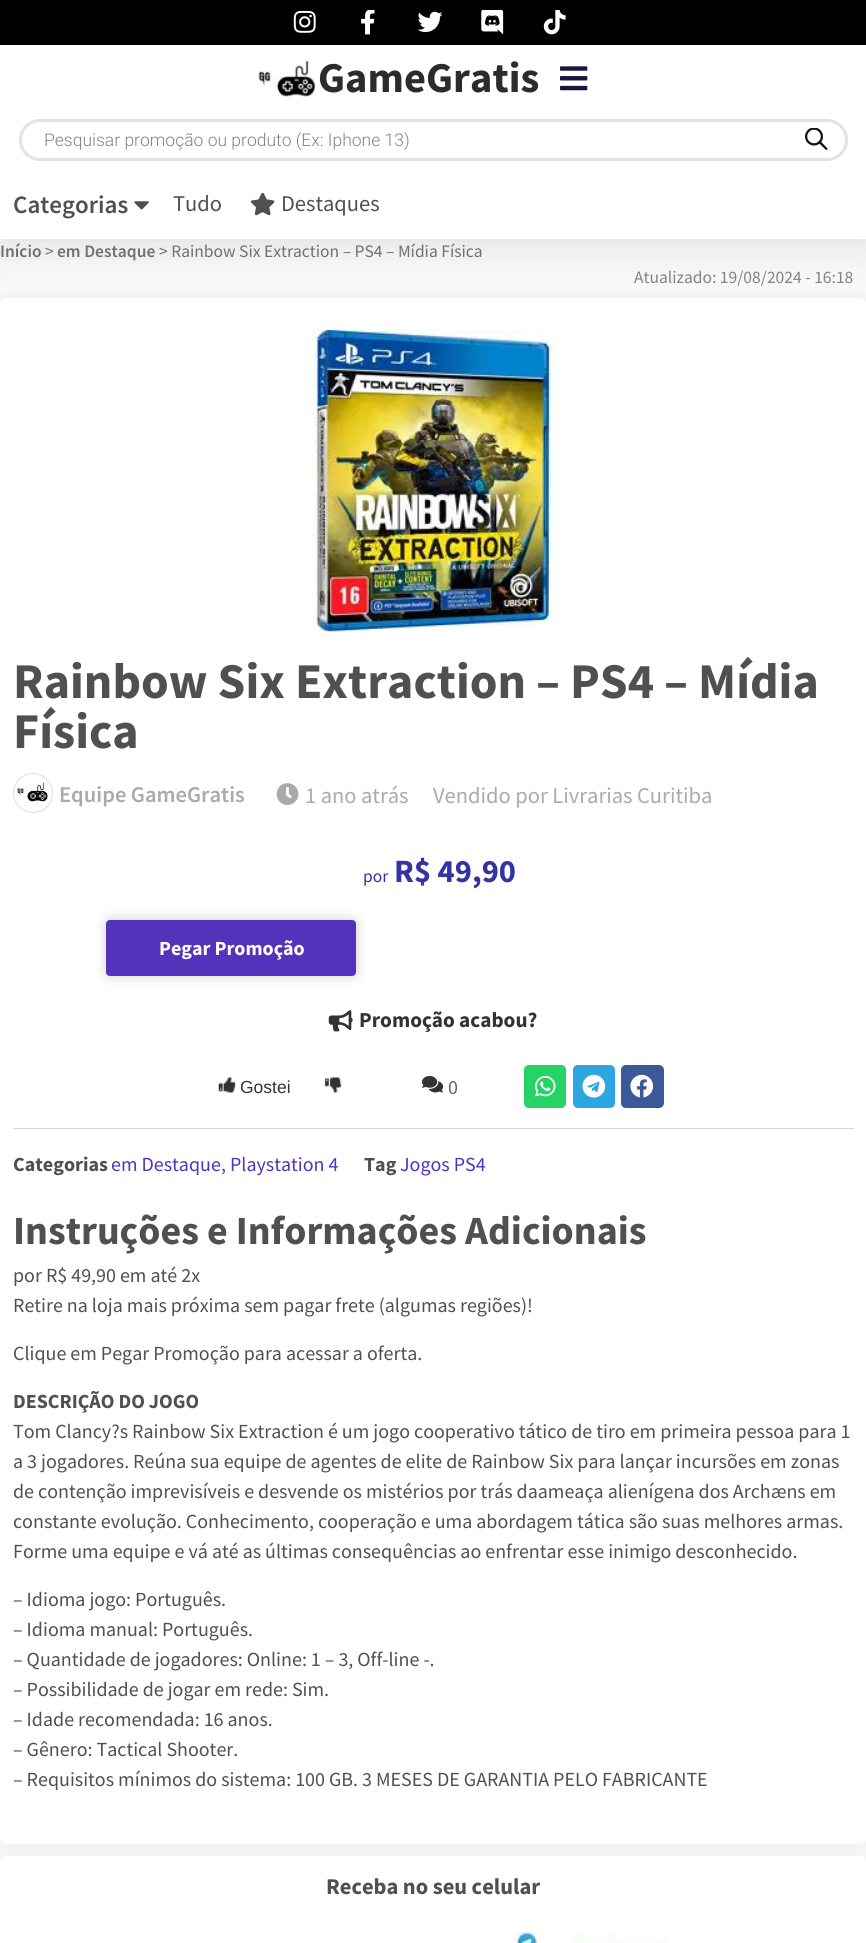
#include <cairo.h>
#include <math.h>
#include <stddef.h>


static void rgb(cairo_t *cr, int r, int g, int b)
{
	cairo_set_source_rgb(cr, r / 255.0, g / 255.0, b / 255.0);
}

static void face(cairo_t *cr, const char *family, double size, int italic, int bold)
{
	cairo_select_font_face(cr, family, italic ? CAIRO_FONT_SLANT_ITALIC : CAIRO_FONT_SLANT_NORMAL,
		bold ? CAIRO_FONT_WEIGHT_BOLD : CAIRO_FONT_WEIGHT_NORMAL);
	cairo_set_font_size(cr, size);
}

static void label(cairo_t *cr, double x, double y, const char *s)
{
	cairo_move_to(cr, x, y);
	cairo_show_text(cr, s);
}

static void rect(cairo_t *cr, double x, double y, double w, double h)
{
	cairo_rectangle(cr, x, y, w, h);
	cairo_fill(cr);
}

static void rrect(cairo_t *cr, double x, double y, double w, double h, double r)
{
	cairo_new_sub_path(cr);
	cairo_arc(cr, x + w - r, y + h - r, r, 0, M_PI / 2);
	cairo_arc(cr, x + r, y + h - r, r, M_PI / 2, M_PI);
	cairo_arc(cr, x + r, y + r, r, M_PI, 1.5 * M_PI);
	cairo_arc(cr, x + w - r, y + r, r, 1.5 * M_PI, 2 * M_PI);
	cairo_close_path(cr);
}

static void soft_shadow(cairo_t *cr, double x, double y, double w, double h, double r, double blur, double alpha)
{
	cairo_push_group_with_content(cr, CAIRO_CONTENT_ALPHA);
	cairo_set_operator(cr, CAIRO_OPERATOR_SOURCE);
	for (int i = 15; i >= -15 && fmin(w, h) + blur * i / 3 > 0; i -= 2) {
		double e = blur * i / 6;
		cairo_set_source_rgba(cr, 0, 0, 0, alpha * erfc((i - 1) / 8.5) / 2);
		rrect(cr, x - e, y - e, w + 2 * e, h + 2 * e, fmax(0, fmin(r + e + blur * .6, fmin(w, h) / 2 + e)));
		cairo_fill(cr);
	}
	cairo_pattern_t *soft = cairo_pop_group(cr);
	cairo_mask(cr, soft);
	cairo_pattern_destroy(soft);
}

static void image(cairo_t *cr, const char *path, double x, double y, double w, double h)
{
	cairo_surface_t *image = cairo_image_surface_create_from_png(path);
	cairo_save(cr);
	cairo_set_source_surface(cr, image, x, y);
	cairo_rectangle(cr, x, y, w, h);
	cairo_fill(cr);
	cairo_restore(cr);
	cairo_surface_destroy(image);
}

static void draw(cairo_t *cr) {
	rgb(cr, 248, 248, 248);
	cairo_paint(cr);
	rgb(cr, 0, 0, 0);
	soft_shadow(cr, 0, 298, 866, 1546, 6, 6, 0.05);
	rgb(cr, 255, 255, 255);
	rrect(cr, 0, 298, 866, 1546, 6);
	cairo_fill(cr);
	rgb(cr, 0, 0, 0);
	soft_shadow(cr, 0, 6, 866, 239, 0, 19, 0.1);
	rgb(cr, 0, 0, 0);
	rect(cr, 0, 0, 866, 45);
	image(cr, "image0.png", 293, 10, 23, 23);
	image(cr, "image1.png", 361, 10, 14, 25);
	image(cr, "image2.png", 417, 11, 26, 21);
	image(cr, "image3.png", 481, 10, 23, 25);
	image(cr, "image4.png", 543, 10, 23, 25);
	rgb(cr, 255, 255, 255);
	rect(cr, 0, 45, 866, 194);
	image(cr, "image5.png", 258, 61, 57, 36);
	face(cr, "Source Sans Pro", 42.5, 0, 1);
	rgb(cr, 44, 44, 44);
	label(cr, 318, 92, "GameGratis");
	image(cr, "image6.png", 560, 66, 28, 25);
	rrect(cr, 20.5, 120.5, 826, 39, 19.5);
	rgb(cr, 226, 226, 226);
	cairo_set_line_width(cr, 3);
	cairo_stroke(cr);
	face(cr, "Roboto Light", 17.5, 0, 0);
	rgb(cr, 131, 131, 131);
	label(cr, 44, 146, "Pesquisar promoção ou produto (Ex: Iphone 13)");
	image(cr, "image7.png", 805, 128, 23, 22);
	face(cr, "Source Sans Pro SemiBold", 25, 0, 0);
	rgb(cr, 80, 80, 80);
	label(cr, 13, 213, "Categorias");
	image(cr, "image8.png", 134, 201, 15, 9);
	face(cr, "Source Sans Pro", 22.5, 0, 0);
	label(cr, 173, 211, "Tudo");
	image(cr, "image9.png", 250, 192, 25, 24);
	label(cr, 281, 211, "Destaques");
	face(cr, "Source Sans Pro SemiBold", 17.5, 0, 0);
	rgb(cr, 112, 112, 112);
	label(cr, 0, 257, "Início");
	face(cr, "Source Sans Pro", 17.5, 0, 0);
	label(cr, 45, 257, ">");
	face(cr, "Source Sans Pro SemiBold", 17.5, 0, 0);
	label(cr, 57, 257, "em Destaque");
	face(cr, "Source Sans Pro", 17.5, 0, 0);
	label(cr, 159, 257, "> Rainbow Six Extraction – PS4 – Mídia Física");
	rgb(cr, 131, 131, 131);
	label(cr, 634, 283, "Atualizado: 19/08/2024 - 16:18");
	image(cr, "image10.png", 304, 330, 254, 302);
	face(cr, "Source Sans Pro", 50, 0, 1);
	rgb(cr, 80, 80, 80);
	label(cr, 13, 698, "Rainbow Six Extraction – PS4 – Mídia");
	label(cr, 13, 748, "Física");
	cairo_new_path(cr);
	cairo_arc(cr, 33, 793, 19.5, 0, 2 * M_PI);
	rgb(cr, 221, 221, 221);
	cairo_set_line_width(cr, 1);
	cairo_stroke(cr);
	image(cr, "image11.png", 16, 781, 32, 22);
	face(cr, "Source Sans Pro SemiBold", 22.5, 0, 0);
	rgb(cr, 170, 170, 170);
	label(cr, 59, 802, "Equipe GameGratis");
	image(cr, "image12.png", 276, 783, 23, 22);
	face(cr, "Source Sans Pro", 22.5, 0, 0);
	label(cr, 305, 803, "1 ano atrás");
	label(cr, 433, 803, "Vendido por Livrarias Curitiba");
	face(cr, "Source Sans Pro", 17.5, 0, 0);
	rgb(cr, 51, 51, 163);
	label(cr, 363, 882, "por");
	face(cr, "Source Sans Pro", 32.5, 0, 1);
	label(cr, 394, 882, "R$ 49,90");
	rgb(cr, 0, 0, 0);
	soft_shadow(cr, 106, 920, 250, 56, 4, 6, 0.2);
	rgb(cr, 84, 50, 188);
	rrect(cr, 106, 920, 250, 56, 4);
	cairo_fill(cr);
	face(cr, "Source Sans Pro", 20, 0, 1);
	rgb(cr, 255, 255, 255);
	label(cr, 159, 955, "Pegar Promoção");
	image(cr, "image13.png", 328, 1010, 25, 22);
	face(cr, "Source Sans Pro", 21.25, 0, 1);
	rgb(cr, 51, 51, 51);
	label(cr, 359, 1027, "Promoção acabou?");
	image(cr, "image14.png", 218, 1077, 18, 16);
	face(cr, "Liberation Sans", 17.5, 0, 0);
	label(cr, 240, 1093, "Gostei");
	image(cr, "image15.png", 324, 1077, 18, 17);
	image(cr, "image16.png", 422, 1076, 22, 17);
	face(cr, "Source Sans Pro", 20, 0, 0);
	rgb(cr, 102, 102, 102);
	label(cr, 448, 1094, "0");
	rgb(cr, 37, 211, 102);
	rrect(cr, 524, 1065, 42, 43, 5);
	cairo_fill(cr);
	image(cr, "image17.png", 535, 1076, 21, 21);
	rgb(cr, 44, 165, 224);
	rrect(cr, 573, 1065, 42, 43, 5);
	cairo_fill(cr);
	image(cr, "image18.png", 582, 1074, 24, 24);
	rgb(cr, 59, 89, 152);
	rrect(cr, 621, 1065, 43, 43, 5);
	cairo_fill(cr);
	image(cr, "image19.png", 630, 1074, 24, 24);
	rgb(cr, 214, 214, 214);
	rect(cr, 13, 1128, 841, 1);
	face(cr, "Source Sans Pro", 20, 0, 1);
	rgb(cr, 80, 80, 80);
	label(cr, 13, 1171, "Categorias");
	face(cr, "Source Sans Pro", 20, 0, 0);
	rgb(cr, 84, 50, 188);
	label(cr, 111, 1171, "em Destaque");
	rgb(cr, 80, 80, 80);
	label(cr, 221, 1171, ",");
	rgb(cr, 84, 50, 188);
	label(cr, 230, 1171, "Playstation 4");
	face(cr, "Source Sans Pro", 20, 0, 1);
	rgb(cr, 80, 80, 80);
	label(cr, 364, 1171, "Tag");
	face(cr, "Source Sans Pro", 20, 0, 0);
	rgb(cr, 84, 50, 188);
	label(cr, 400, 1171, "Jogos PS4");
	face(cr, "Source Sans Pro", 40, 0, 1);
	rgb(cr, 80, 80, 80);
	label(cr, 13, 1244, "Instruções e Informações Adicionais");
	face(cr, "Source Sans Pro", 20, 0, 0);
	label(cr, 13, 1282, "por R$ 49,90 em até 2x");
	label(cr, 13, 1312, "Retire na loja mais próxima sem pagar frete (algumas regiões)!");
	label(cr, 13, 1360, "Clique em Pegar Promoção para acessar a oferta.");
	face(cr, "Source Sans Pro", 20, 0, 1);
	label(cr, 13, 1408, "DESCRIÇÃO DO JOGO");
	face(cr, "Source Sans Pro", 20, 0, 0);
	label(cr, 13, 1438, "Tom Clancy?s Rainbow Six Extraction é um jogo cooperativo tático de tiro em primeira pessoa para 1");
	label(cr, 13, 1468, "a 3 jogadores. Reúna sua equipe de agentes de elite de Rainbow Six para lançar incursões em zonas");
	label(cr, 13, 1498, "de contenção imprevisíveis e desvende os mistérios por trás daameaça alienígena dos Archæns em");
	label(cr, 13, 1528, "constante evolução. Conhecimento, cooperação e uma abordagem tática são suas melhores armas.");
	label(cr, 13, 1558, "Forme uma equipe e vá até as últimas consequências ao enfrentar esse inimigo desconhecido.");
	label(cr, 13, 1606, "– Idioma jogo: Português.");
	label(cr, 13, 1636, "– Idioma manual: Português.");
	label(cr, 13, 1666, "– Quantidade de jogadores: Online: 1 – 3, Off-line -.");
	label(cr, 13, 1696, "– Possibilidade de jogar em rede: Sim.");
	label(cr, 13, 1726, "– Idade recomendada: 16 anos.");
	label(cr, 13, 1756, "– Gênero: Tactical Shooter.");
	label(cr, 13, 1786, "– Requisitos mínimos do sistema: 100 GB. 3 MESES DE GARANTIA PELO FABRICANTE");
	rgb(cr, 0, 0, 0);
	soft_shadow(cr, 0, 1856, 866, 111, 6, 6, 0.05);
	rgb(cr, 255, 255, 255);
	rrect(cr, 0, 1856, 866, 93, 6);
	cairo_fill(cr);
	face(cr, "Source Sans Pro", 22.5, 0, 1);
	rgb(cr, 80, 80, 80);
	label(cr, 326, 1894, "Receba no seu celular");
	image(cr, "image20.png", 515, 1932, 153, 11);
}

int main(void) {
	cairo_surface_t *surface = cairo_image_surface_create(CAIRO_FORMAT_RGB24, 866, 1943);
	cairo_t *cr = cairo_create(surface);
	cairo_font_options_t *options = cairo_font_options_create();
	cairo_font_options_set_hint_metrics(options, CAIRO_HINT_METRICS_OFF);
	cairo_font_options_set_hint_style(options, CAIRO_HINT_STYLE_NONE);
	cairo_set_font_options(cr, options);
	cairo_set_miter_limit(cr, 4);
	draw(cr);
	cairo_surface_write_to_png(surface, "render.png");
	cairo_font_options_destroy(options);
	cairo_destroy(cr);
	cairo_surface_destroy(surface);
	return 0;
}
